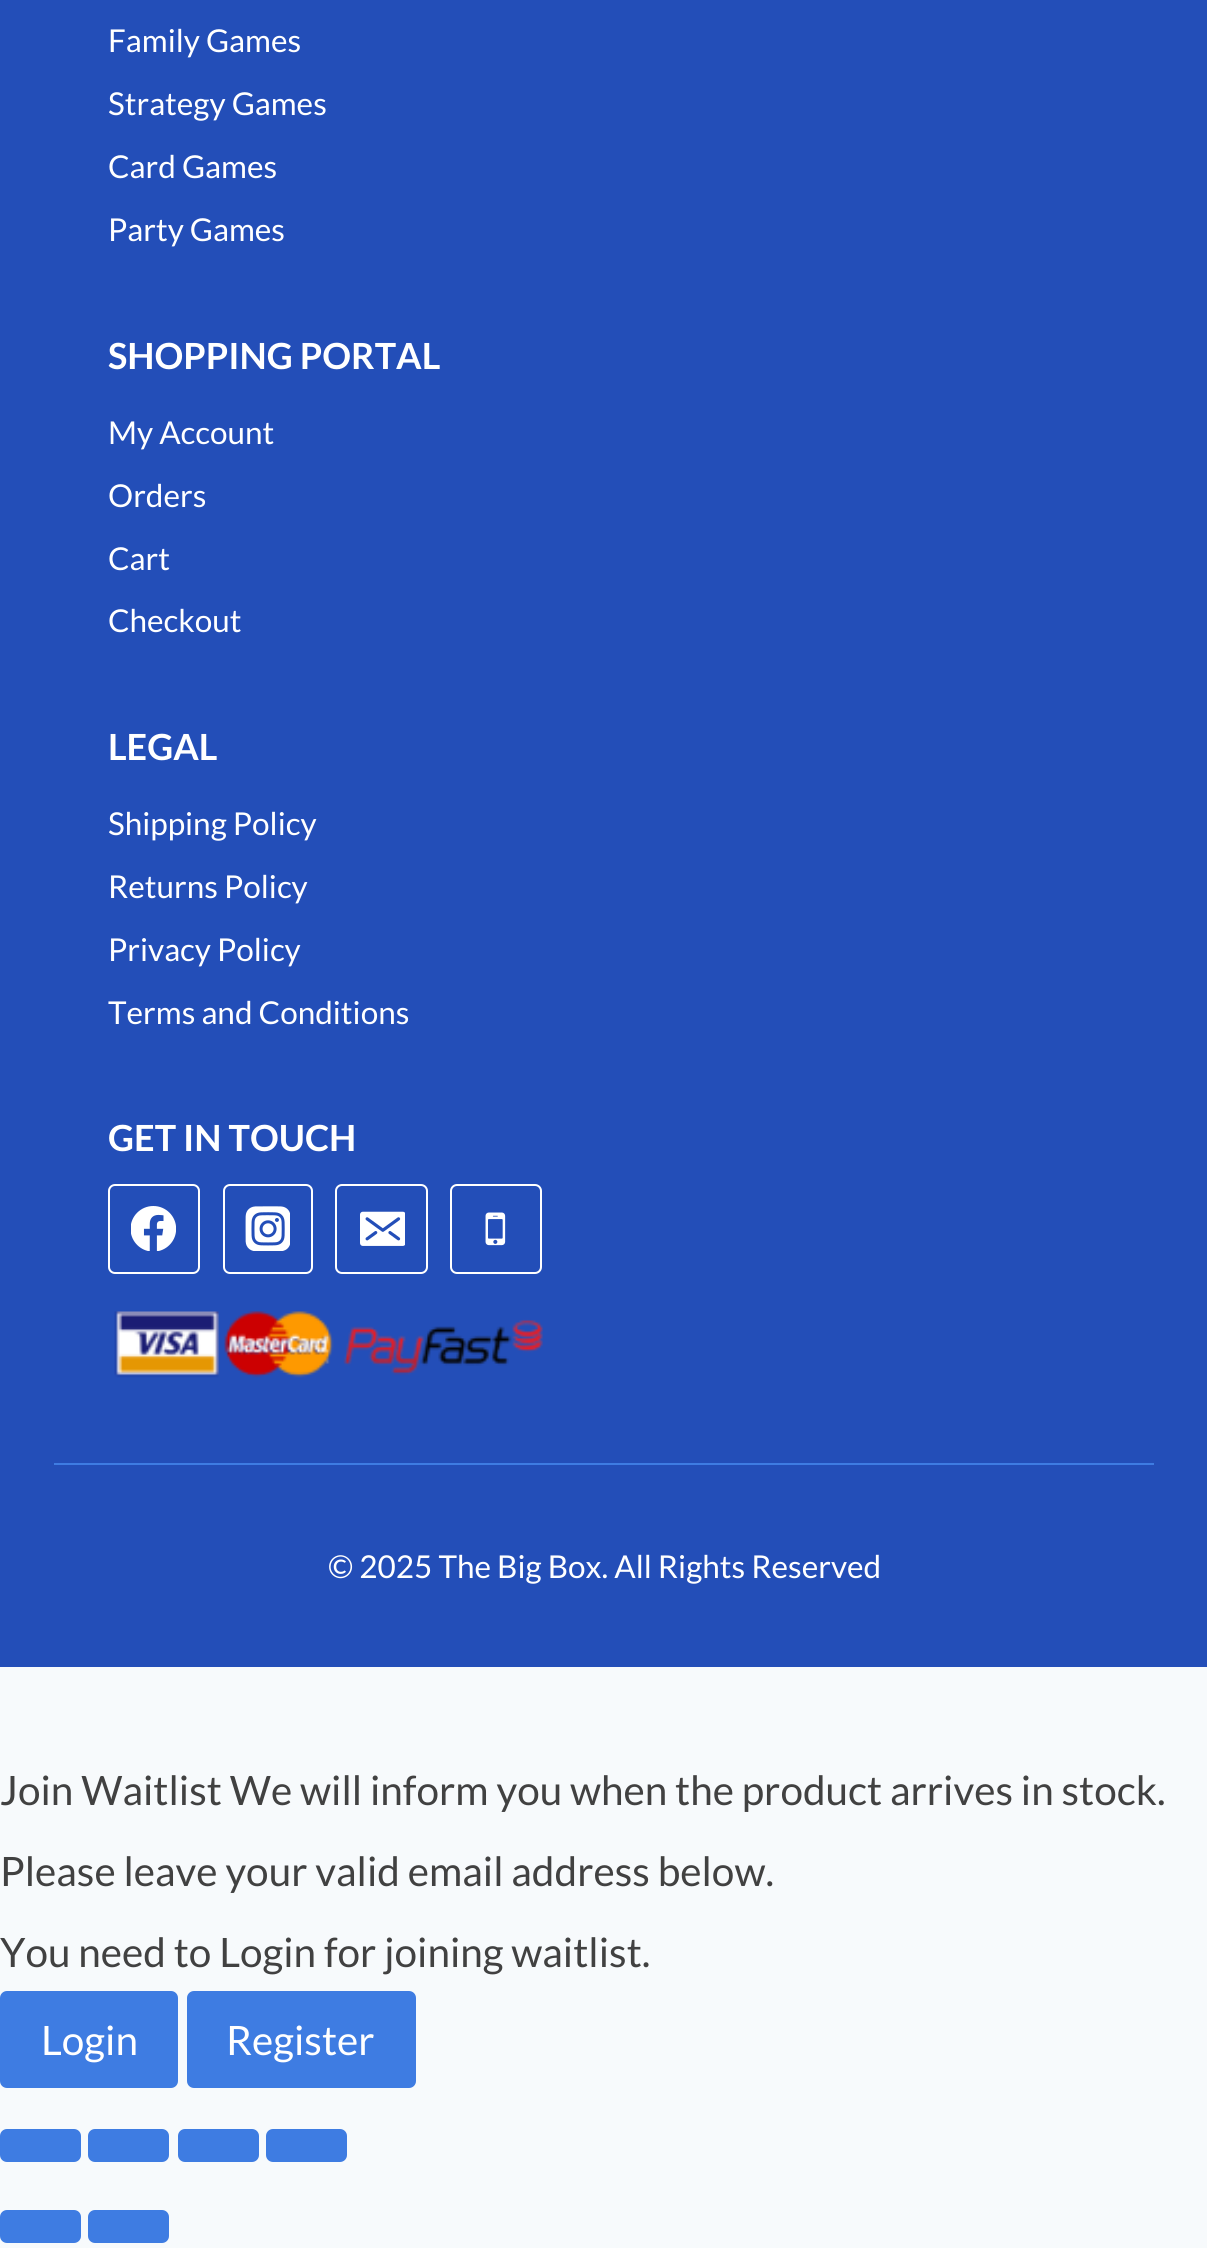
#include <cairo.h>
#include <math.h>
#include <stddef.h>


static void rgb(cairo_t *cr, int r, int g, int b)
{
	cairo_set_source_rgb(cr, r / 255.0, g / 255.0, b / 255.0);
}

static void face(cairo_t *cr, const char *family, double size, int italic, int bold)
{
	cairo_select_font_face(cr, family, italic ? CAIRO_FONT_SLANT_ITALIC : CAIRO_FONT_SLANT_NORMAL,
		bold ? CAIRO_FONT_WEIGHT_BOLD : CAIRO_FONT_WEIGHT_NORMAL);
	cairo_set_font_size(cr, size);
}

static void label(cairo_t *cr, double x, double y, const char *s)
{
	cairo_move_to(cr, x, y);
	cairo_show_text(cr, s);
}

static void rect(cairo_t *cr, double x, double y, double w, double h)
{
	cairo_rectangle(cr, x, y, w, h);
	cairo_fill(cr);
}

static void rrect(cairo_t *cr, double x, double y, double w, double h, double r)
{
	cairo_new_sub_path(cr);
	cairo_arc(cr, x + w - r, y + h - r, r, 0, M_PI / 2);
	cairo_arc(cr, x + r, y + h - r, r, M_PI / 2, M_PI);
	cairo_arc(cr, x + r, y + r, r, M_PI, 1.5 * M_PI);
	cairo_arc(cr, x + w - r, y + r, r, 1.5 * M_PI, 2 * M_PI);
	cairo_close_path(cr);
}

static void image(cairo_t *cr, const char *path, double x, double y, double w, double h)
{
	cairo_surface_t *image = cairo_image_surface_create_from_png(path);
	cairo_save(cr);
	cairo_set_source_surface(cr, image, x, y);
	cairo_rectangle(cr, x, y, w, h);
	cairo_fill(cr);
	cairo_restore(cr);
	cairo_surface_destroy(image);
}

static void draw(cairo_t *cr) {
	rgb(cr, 247, 250, 252);
	cairo_paint(cr);
	rgb(cr, 35, 78, 184);
	rect(cr, 0, 0, 1207, 1667);
	face(cr, "Lato", 31.5, 0, 0);
	rgb(cr, 255, 255, 255);
	label(cr, 108, 52, "Family Games");
	label(cr, 108, 115, "Strategy Games");
	label(cr, 108, 178, "Card Games");
	label(cr, 108, 241, "Party Games");
	face(cr, "Lato", 36, 0, 1);
	label(cr, 108, 369, "SHOPPING PORTAL");
	face(cr, "Lato", 31.5, 0, 0);
	label(cr, 108, 444, "My Account");
	label(cr, 108, 507, "Orders");
	label(cr, 108, 570, "Cart");
	label(cr, 108, 632, "Checkout");
	face(cr, "Lato", 36, 0, 1);
	label(cr, 108, 760, "LEGAL");
	face(cr, "Lato", 31.5, 0, 0);
	label(cr, 108, 835, "Shipping Policy");
	label(cr, 108, 898, "Returns Policy");
	label(cr, 108, 961, "Privacy Policy");
	label(cr, 108, 1024, "Terms and Conditions");
	face(cr, "Lato", 36, 0, 1);
	label(cr, 108, 1151, "GET IN TOUCH");
	rrect(cr, 109, 1185, 90, 88, 6);
	cairo_stroke(cr);
	image(cr, "image0.png", 131, 1206, 45, 45);
	rrect(cr, 224, 1185, 88, 88, 6);
	cairo_stroke(cr);
	image(cr, "image1.png", 245, 1206, 45, 45);
	rrect(cr, 336, 1185, 91, 88, 6);
	cairo_stroke(cr);
	image(cr, "image2.png", 360, 1211, 45, 35);
	rrect(cr, 451, 1185, 90, 88, 6);
	cairo_stroke(cr);
	image(cr, "image3.png", 485, 1212, 21, 34);
	image(cr, "image4.png", 114, 1311, 429, 67);
	rgb(cr, 62, 124, 226);
	rect(cr, 54, 1463, 1100, 2);
	face(cr, "Lato", 31.5, 0, 0);
	rgb(cr, 255, 255, 255);
	label(cr, 328, 1578, "© 2025 The Big Box. All Rights Reserved");
	face(cr, "Lato", 40.5, 0, 0);
	rgb(cr, 65, 65, 65);
	label(cr, 0, 1805, "Join Waitlist We will inform you when the product arrives in stock.");
	label(cr, 0, 1886, "Please leave your valid email address below.");
	label(cr, 0, 1967, "You need to Login for joining waitlist.");
	rgb(cr, 62, 124, 226);
	rrect(cr, 0, 1991, 178, 97, 7);
	cairo_fill(cr);
	rgb(cr, 255, 255, 255);
	label(cr, 41, 2055, "Login");
	rgb(cr, 62, 124, 226);
	rrect(cr, 187, 1991, 229, 97, 7);
	cairo_fill(cr);
	rgb(cr, 255, 255, 255);
	label(cr, 226, 2055, "Register");
	rgb(cr, 62, 124, 226);
	rrect(cr, 0, 2129, 81, 33, 7);
	cairo_fill(cr);
	rrect(cr, 88, 2129, 81, 33, 7);
	cairo_fill(cr);
	rrect(cr, 178, 2129, 81, 33, 7);
	cairo_fill(cr);
	rrect(cr, 266, 2129, 81, 33, 7);
	cairo_fill(cr);
	rrect(cr, 0, 2210, 81, 33, 7);
	cairo_fill(cr);
	rrect(cr, 88, 2210, 81, 33, 7);
	cairo_fill(cr);
}

int main(void) {
	cairo_surface_t *surface = cairo_image_surface_create(CAIRO_FORMAT_RGB24, 1207, 2248);
	cairo_t *cr = cairo_create(surface);
	cairo_font_options_t *options = cairo_font_options_create();
	cairo_font_options_set_hint_metrics(options, CAIRO_HINT_METRICS_OFF);
	cairo_font_options_set_hint_style(options, CAIRO_HINT_STYLE_NONE);
	cairo_set_font_options(cr, options);
	cairo_set_miter_limit(cr, 4);
	draw(cr);
	cairo_surface_write_to_png(surface, "render.png");
	cairo_font_options_destroy(options);
	cairo_destroy(cr);
	cairo_surface_destroy(surface);
	return 0;
}
